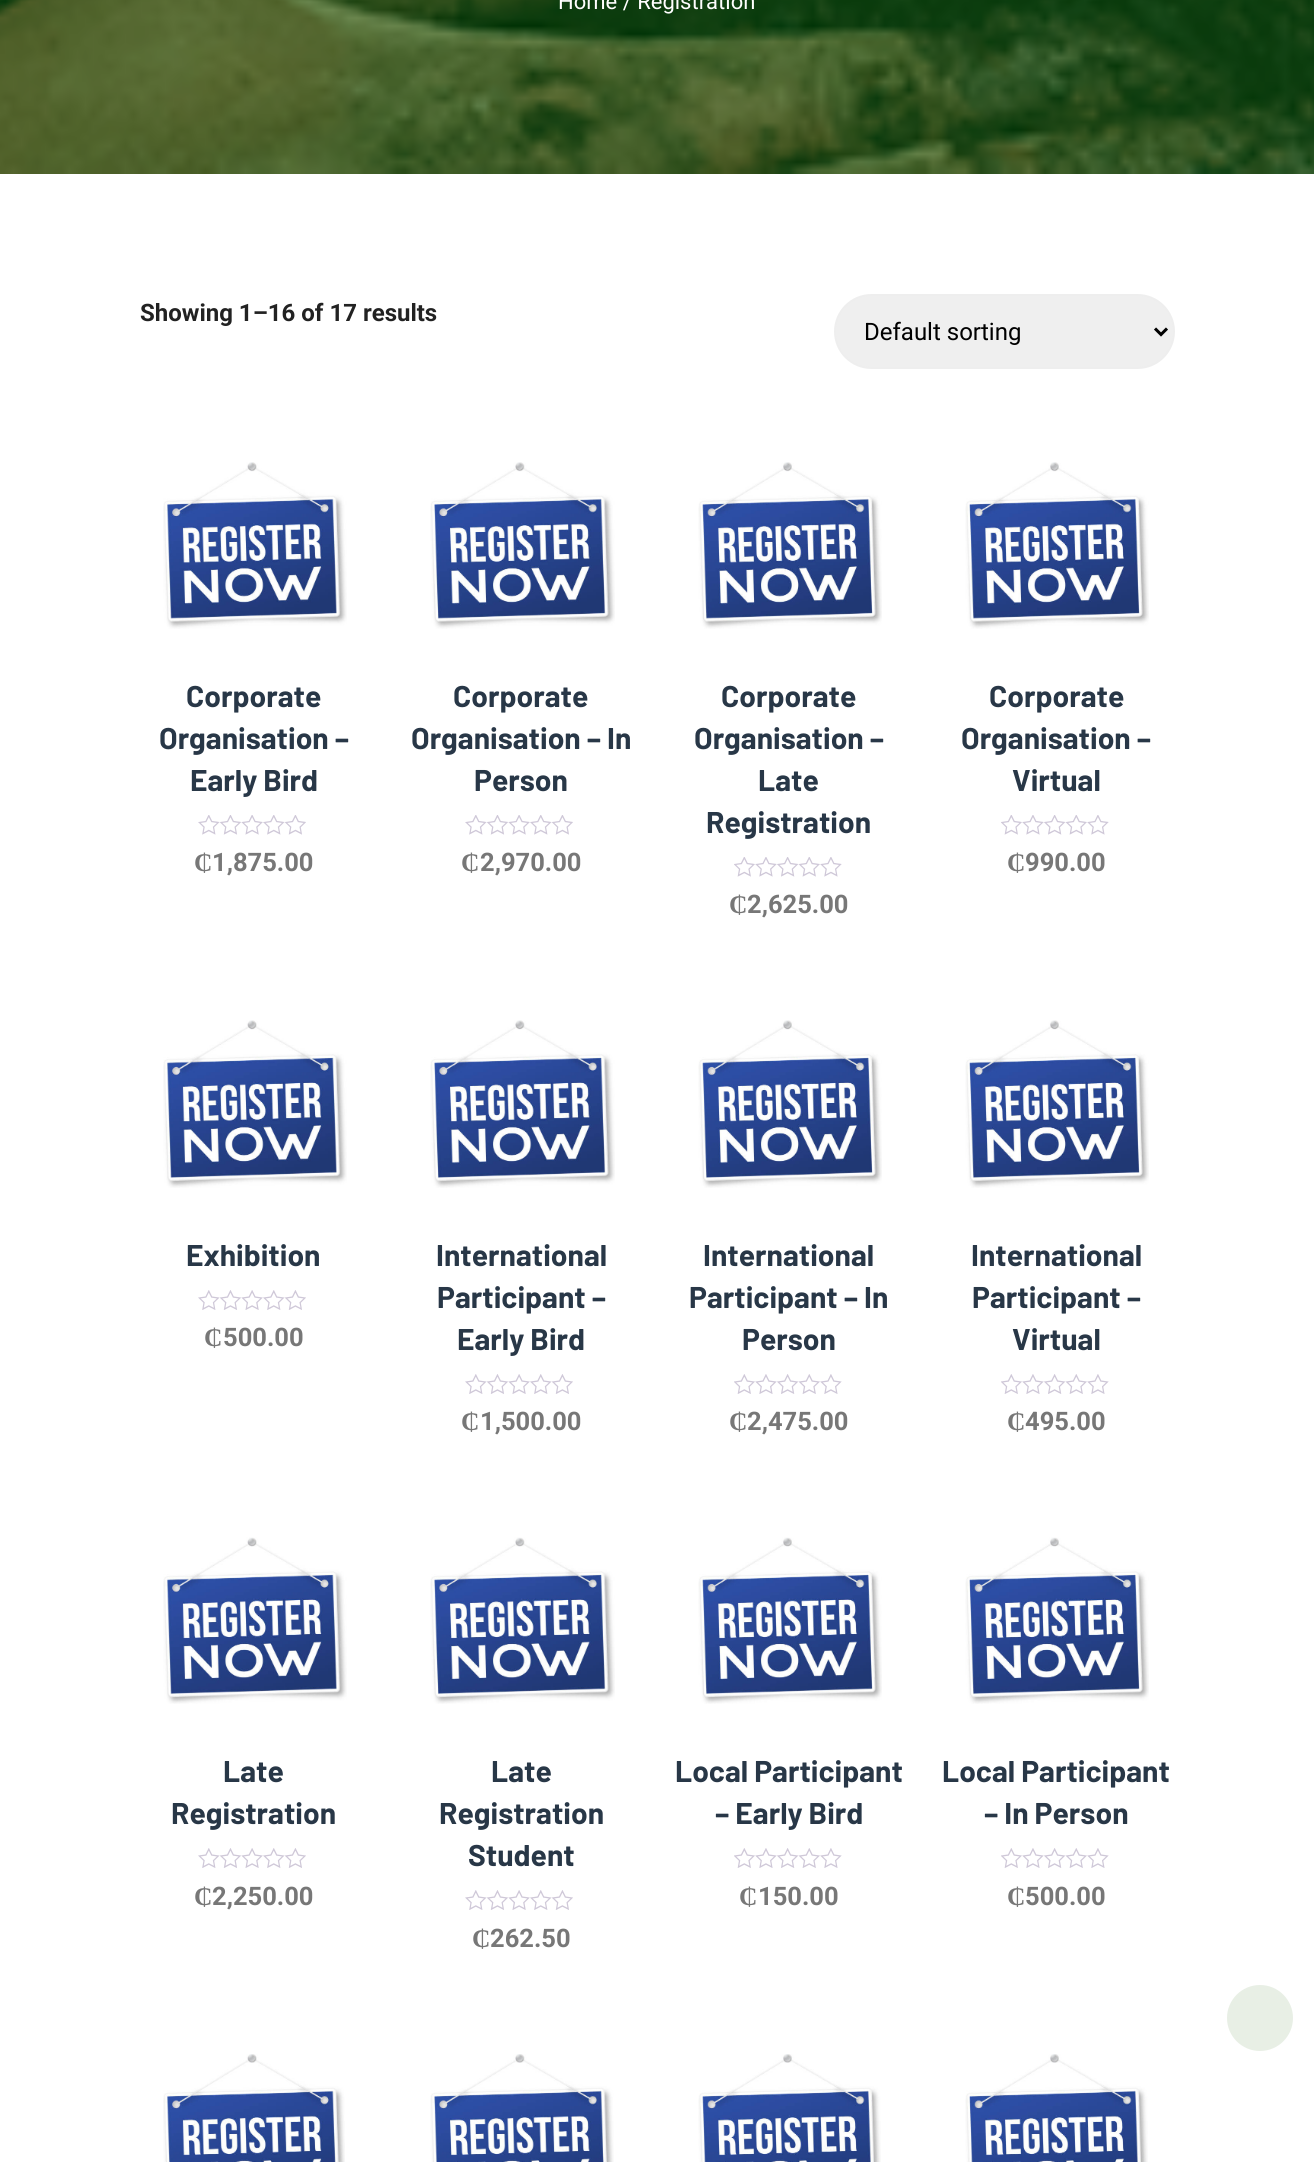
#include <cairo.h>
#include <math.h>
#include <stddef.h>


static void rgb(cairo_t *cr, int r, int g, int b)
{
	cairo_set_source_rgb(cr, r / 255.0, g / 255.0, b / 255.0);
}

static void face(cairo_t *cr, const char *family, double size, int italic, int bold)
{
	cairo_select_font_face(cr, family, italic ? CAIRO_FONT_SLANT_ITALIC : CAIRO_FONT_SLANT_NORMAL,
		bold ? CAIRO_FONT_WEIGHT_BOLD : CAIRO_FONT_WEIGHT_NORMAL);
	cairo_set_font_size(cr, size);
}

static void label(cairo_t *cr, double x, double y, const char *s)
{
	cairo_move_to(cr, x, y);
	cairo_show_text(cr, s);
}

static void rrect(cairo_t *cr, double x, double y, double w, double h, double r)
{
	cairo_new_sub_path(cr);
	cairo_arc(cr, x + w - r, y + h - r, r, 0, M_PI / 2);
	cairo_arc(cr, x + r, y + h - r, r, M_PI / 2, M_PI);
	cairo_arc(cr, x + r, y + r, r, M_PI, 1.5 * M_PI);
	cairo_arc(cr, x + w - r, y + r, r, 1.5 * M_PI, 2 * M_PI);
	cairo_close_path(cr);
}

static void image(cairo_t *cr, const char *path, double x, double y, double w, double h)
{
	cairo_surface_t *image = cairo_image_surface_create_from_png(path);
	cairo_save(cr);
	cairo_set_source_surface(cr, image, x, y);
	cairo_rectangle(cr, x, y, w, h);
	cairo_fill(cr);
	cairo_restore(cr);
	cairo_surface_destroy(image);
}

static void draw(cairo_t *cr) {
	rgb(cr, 255, 255, 255);
	cairo_paint(cr);
	image(cr, "image0.png", 0, 0, 1314, 174);
	face(cr, "Roboto", 22, 0, 0);
	rgb(cr, 255, 255, 255);
	label(cr, 558, 9, "Home / Registration");
	face(cr, "Roboto", 24, 0, 1);
	rgb(cr, 34, 34, 34);
	label(cr, 140, 321, "Showing 1–16 of 17 results");
	rgb(cr, 239, 239, 239);
	rrect(cr, 835, 295, 339, 73, 36.5);
	cairo_fill_preserve(cr);
	rgb(cr, 238, 238, 238);
	cairo_stroke(cr);
	cairo_new_path(cr);
	cairo_move_to(cr, 1155, 328.5);
	cairo_line_to(cr, 1161, 334.5);
	cairo_line_to(cr, 1167, 328.5);
	rgb(cr, 0, 0, 0);
	cairo_set_line_width(cr, 3);
	cairo_stroke(cr);
	face(cr, "Roboto", 24, 0, 0);
	label(cr, 864, 340, "Default sorting");
	image(cr, "image1.png", 163, 462, 184, 167);
	face(cr, "Barlow", 30, 0, 1);
	rgb(cr, 40, 55, 71);
	label(cr, 186, 707, "Corporate");
	label(cr, 159, 749, "Organisation –");
	label(cr, 190, 791, "Early Bird");
	image(cr, "image2.png", 198, 815, 108, 20);
	face(cr, "Liberation Serif", 25.5, 0, 1);
	rgb(cr, 119, 119, 119);
	label(cr, 194, 871, "₵");
	face(cr, "Roboto", 25.5, 0, 1);
	label(cr, 212, 871, "1,875.00");
	image(cr, "image3.png", 430, 462, 185, 167);
	face(cr, "Barlow", 30, 0, 1);
	rgb(cr, 40, 55, 71);
	label(cr, 453, 707, "Corporate");
	label(cr, 411, 749, "Organisation – In");
	label(cr, 474, 791, "Person");
	image(cr, "image2.png", 465, 815, 108, 20);
	face(cr, "Liberation Serif", 25.5, 0, 1);
	rgb(cr, 119, 119, 119);
	label(cr, 461, 871, "₵");
	face(cr, "Roboto", 25.5, 0, 1);
	label(cr, 480, 871, "2,970.00");
	image(cr, "image4.png", 698, 462, 184, 167);
	face(cr, "Barlow", 30, 0, 1);
	rgb(cr, 40, 55, 71);
	label(cr, 721, 707, "Corporate");
	label(cr, 694, 749, "Organisation –");
	label(cr, 758, 791, "Late");
	label(cr, 706, 833, "Registration");
	image(cr, "image5.png", 734, 857, 108, 20);
	face(cr, "Liberation Serif", 25.5, 0, 1);
	rgb(cr, 119, 119, 119);
	label(cr, 729, 913, "₵");
	face(cr, "Roboto", 25.5, 0, 1);
	label(cr, 747, 913, "2,625.00");
	image(cr, "image6.png", 965, 462, 184, 167);
	face(cr, "Barlow", 30, 0, 1);
	rgb(cr, 40, 55, 71);
	label(cr, 989, 707, "Corporate");
	label(cr, 961, 749, "Organisation –");
	label(cr, 1012, 791, "Virtual");
	image(cr, "image5.png", 1001, 815, 108, 20);
	face(cr, "Liberation Serif", 25.5, 0, 1);
	rgb(cr, 119, 119, 119);
	label(cr, 1007, 871, "₵");
	face(cr, "Roboto", 25.5, 0, 1);
	label(cr, 1025, 871, "990.00");
	image(cr, "image7.png", 163, 1020, 184, 168);
	face(cr, "Barlow", 30, 0, 1);
	rgb(cr, 40, 55, 71);
	label(cr, 186, 1266, "Exhibition");
	image(cr, "image8.png", 198, 1290, 108, 20);
	face(cr, "Liberation Serif", 25.5, 0, 1);
	rgb(cr, 119, 119, 119);
	label(cr, 204, 1346, "₵");
	face(cr, "Roboto", 25.5, 0, 1);
	label(cr, 223, 1346, "500.00");
	image(cr, "image9.png", 430, 1020, 185, 168);
	face(cr, "Barlow", 30, 0, 1);
	rgb(cr, 40, 55, 71);
	label(cr, 436, 1266, "International");
	label(cr, 437, 1308, "Participant –");
	label(cr, 457, 1350, "Early Bird");
	image(cr, "image8.png", 465, 1374, 108, 20);
	face(cr, "Liberation Serif", 25.5, 0, 1);
	rgb(cr, 119, 119, 119);
	label(cr, 461, 1430, "₵");
	face(cr, "Roboto", 25.5, 0, 1);
	label(cr, 480, 1430, "1,500.00");
	image(cr, "image10.png", 698, 1020, 184, 168);
	face(cr, "Barlow", 30, 0, 1);
	rgb(cr, 40, 55, 71);
	label(cr, 703, 1266, "International");
	label(cr, 689, 1308, "Participant – In");
	label(cr, 742, 1350, "Person");
	image(cr, "image11.png", 734, 1374, 108, 20);
	face(cr, "Liberation Serif", 25.5, 0, 1);
	rgb(cr, 119, 119, 119);
	label(cr, 729, 1430, "₵");
	face(cr, "Roboto", 25.5, 0, 1);
	label(cr, 747, 1430, "2,475.00");
	image(cr, "image12.png", 965, 1020, 184, 168);
	face(cr, "Barlow", 30, 0, 1);
	rgb(cr, 40, 55, 71);
	label(cr, 971, 1266, "International");
	label(cr, 972, 1308, "Participant –");
	label(cr, 1012, 1350, "Virtual");
	image(cr, "image11.png", 1001, 1374, 108, 20);
	face(cr, "Liberation Serif", 25.5, 0, 1);
	rgb(cr, 119, 119, 119);
	label(cr, 1007, 1430, "₵");
	face(cr, "Roboto", 25.5, 0, 1);
	label(cr, 1025, 1430, "495.00");
	image(cr, "image13.png", 163, 1537, 184, 167);
	face(cr, "Barlow", 30, 0, 1);
	rgb(cr, 40, 55, 71);
	label(cr, 223, 1782, "Late");
	label(cr, 171, 1824, "Registration");
	image(cr, "image8.png", 198, 1848, 108, 20);
	face(cr, "Liberation Serif", 25.5, 0, 1);
	rgb(cr, 119, 119, 119);
	label(cr, 194, 1905, "₵");
	face(cr, "Roboto", 25.5, 0, 1);
	label(cr, 212, 1905, "2,250.00");
	image(cr, "image14.png", 430, 1537, 185, 167);
	face(cr, "Barlow", 30, 0, 1);
	rgb(cr, 40, 55, 71);
	label(cr, 491, 1782, "Late");
	label(cr, 439, 1824, "Registration");
	label(cr, 468, 1866, "Student");
	image(cr, "image8.png", 465, 1890, 108, 20);
	face(cr, "Liberation Serif", 25.5, 0, 1);
	rgb(cr, 119, 119, 119);
	label(cr, 472, 1947, "₵");
	face(cr, "Roboto", 25.5, 0, 1);
	label(cr, 490, 1947, "262.50");
	image(cr, "image15.png", 698, 1537, 184, 167);
	face(cr, "Barlow", 30, 0, 1);
	rgb(cr, 40, 55, 71);
	label(cr, 675, 1782, "Local Participant");
	label(cr, 715, 1824, "– Early Bird");
	image(cr, "image11.png", 734, 1848, 108, 20);
	face(cr, "Liberation Serif", 25.5, 0, 1);
	rgb(cr, 119, 119, 119);
	label(cr, 739, 1905, "₵");
	face(cr, "Roboto", 25.5, 0, 1);
	label(cr, 758, 1905, "150.00");
	image(cr, "image16.png", 965, 1537, 184, 167);
	face(cr, "Barlow", 30, 0, 1);
	rgb(cr, 40, 55, 71);
	label(cr, 942, 1782, "Local Participant");
	label(cr, 984, 1824, "– In Person");
	image(cr, "image11.png", 1001, 1848, 108, 20);
	face(cr, "Liberation Serif", 25.5, 0, 1);
	rgb(cr, 119, 119, 119);
	label(cr, 1007, 1905, "₵");
	face(cr, "Roboto", 25.5, 0, 1);
	label(cr, 1025, 1905, "500.00");
	image(cr, "image17.png", 163, 2054, 182, 108);
	image(cr, "image18.png", 430, 2054, 184, 108);
	image(cr, "image19.png", 698, 2054, 183, 108);
	image(cr, "image20.png", 965, 2054, 183, 108);
	rgb(cr, 232, 239, 229);
	cairo_arc(cr, 1260, 2018, 33, 0, 2 * M_PI);
	cairo_fill(cr);
}

int main(void) {
	cairo_surface_t *surface = cairo_image_surface_create(CAIRO_FORMAT_RGB24, 1314, 2162);
	cairo_t *cr = cairo_create(surface);
	cairo_font_options_t *options = cairo_font_options_create();
	cairo_font_options_set_hint_metrics(options, CAIRO_HINT_METRICS_OFF);
	cairo_font_options_set_hint_style(options, CAIRO_HINT_STYLE_NONE);
	cairo_set_font_options(cr, options);
	cairo_set_miter_limit(cr, 4);
	draw(cr);
	cairo_surface_write_to_png(surface, "render.png");
	cairo_font_options_destroy(options);
	cairo_destroy(cr);
	cairo_surface_destroy(surface);
	return 0;
}
